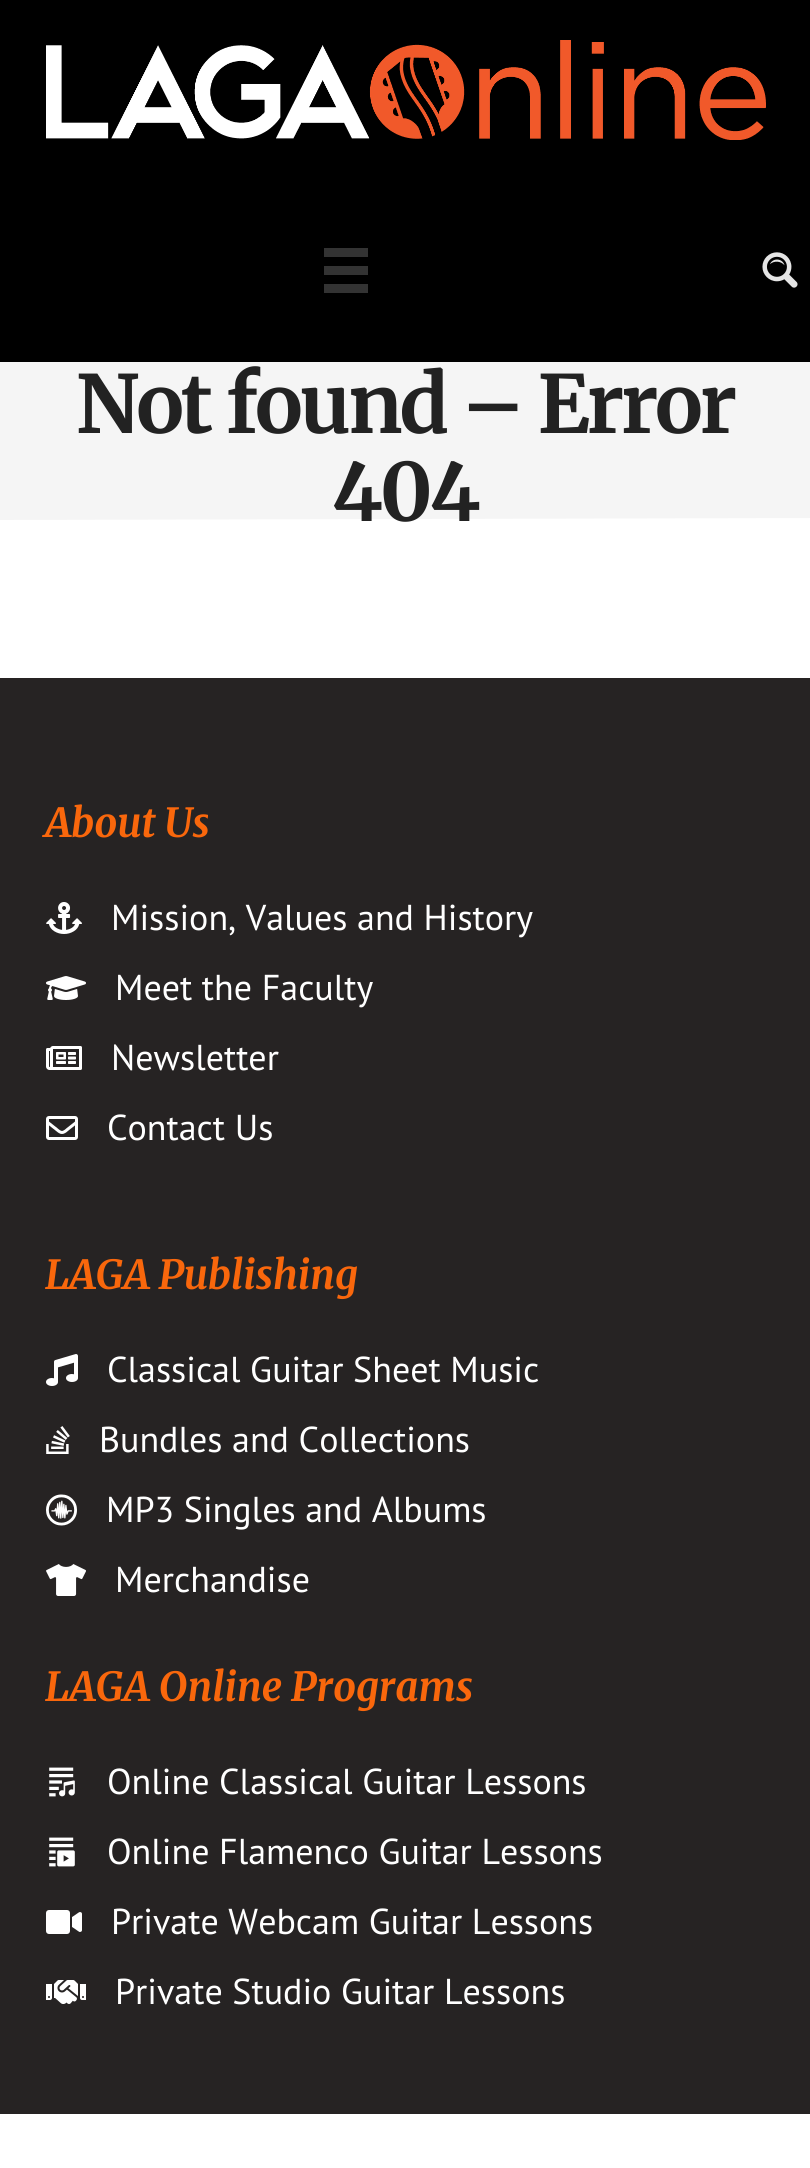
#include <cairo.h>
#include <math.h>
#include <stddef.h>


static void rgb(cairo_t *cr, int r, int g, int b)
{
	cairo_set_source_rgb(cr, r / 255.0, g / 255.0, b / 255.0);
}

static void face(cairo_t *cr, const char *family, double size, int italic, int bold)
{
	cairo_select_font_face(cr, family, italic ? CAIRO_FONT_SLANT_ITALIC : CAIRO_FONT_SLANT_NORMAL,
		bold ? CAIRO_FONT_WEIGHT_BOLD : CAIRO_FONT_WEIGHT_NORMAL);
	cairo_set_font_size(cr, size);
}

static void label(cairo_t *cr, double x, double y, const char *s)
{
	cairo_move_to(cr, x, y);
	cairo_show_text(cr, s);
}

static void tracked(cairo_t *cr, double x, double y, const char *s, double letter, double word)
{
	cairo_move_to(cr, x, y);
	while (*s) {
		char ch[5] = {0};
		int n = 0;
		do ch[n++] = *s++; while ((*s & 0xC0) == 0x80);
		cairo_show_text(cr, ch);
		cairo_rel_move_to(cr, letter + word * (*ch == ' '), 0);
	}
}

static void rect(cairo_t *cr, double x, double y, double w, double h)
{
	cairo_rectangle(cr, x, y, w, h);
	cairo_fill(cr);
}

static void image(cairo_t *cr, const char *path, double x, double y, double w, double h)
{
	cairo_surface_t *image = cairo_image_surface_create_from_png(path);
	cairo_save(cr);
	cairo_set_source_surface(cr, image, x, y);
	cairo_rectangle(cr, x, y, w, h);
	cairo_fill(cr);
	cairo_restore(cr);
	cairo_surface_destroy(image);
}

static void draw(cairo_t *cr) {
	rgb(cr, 255, 255, 255);
	cairo_paint(cr);
	rgb(cr, 245, 245, 245);
	cairo_new_path(cr);
	cairo_move_to(cr, 0, 362);
	cairo_line_to(cr, 810, 360);
	cairo_line_to(cr, 810, 518);
	cairo_line_to(cr, 0, 520);
	cairo_close_path(cr);
	cairo_fill(cr);
	cairo_new_path(cr);
	cairo_move_to(cr, 0, 355);
	cairo_line_to(cr, 810, 284);
	cairo_line_to(cr, 810, 442);
	cairo_line_to(cr, 0, 513);
	cairo_close_path(cr);
	cairo_fill(cr);
	rgb(cr, 0, 0, 0);
	rect(cr, 0, 0, 810, 362);
	image(cr, "image0.png", 46, 40, 720, 100);
	rgb(cr, 51, 51, 51);
	rect(cr, 324, 248, 44, 9);
	rect(cr, 324, 266, 44, 9);
	rect(cr, 324, 284, 44, 9);
	image(cr, "image1.png", 762, 252, 36, 36);
	face(cr, "Merriweather", 80, 0, 1);
	rgb(cr, 34, 34, 34);
	tracked(cr, 76, 433, "Not found – Error", -3, 0);
	tracked(cr, 332, 521, "404", -3, 0);
	rgb(cr, 38, 35, 35);
	rect(cr, 0, 678, 810, 1436);
	face(cr, "Merriweather", 40, 1, 1);
	rgb(cr, 249, 103, 12);
	label(cr, 45, 837, "About Us");
	image(cr, "image2.png", 46, 902, 36, 32);
	face(cr, "PT Sans", 36, 0, 0);
	rgb(cr, 255, 255, 255);
	label(cr, 111, 930, "Mission, Values and History");
	image(cr, "image3.png", 46, 976, 40, 24);
	label(cr, 115, 1000, "Meet the Faculty");
	image(cr, "image4.png", 46, 1046, 36, 24);
	label(cr, 111, 1070, "Newsletter");
	image(cr, "image5.png", 46, 1116, 32, 24);
	label(cr, 107, 1140, "Contact Us");
	face(cr, "Merriweather", 40, 1, 1);
	rgb(cr, 249, 103, 12);
	label(cr, 45, 1289, "LAGA Publishing");
	image(cr, "image6.png", 46, 1354, 32, 32);
	face(cr, "PT Sans", 36, 0, 0);
	rgb(cr, 255, 255, 255);
	label(cr, 107, 1382, "Classical Guitar Sheet Music");
	image(cr, "image7.png", 46, 1426, 24, 28);
	label(cr, 99, 1452, "Bundles and Collections");
	image(cr, "image8.png", 46, 1494, 31, 32);
	label(cr, 106, 1522, "MP3 Singles and Albums");
	image(cr, "image9.png", 46, 1564, 40, 32);
	label(cr, 115, 1592, "Merchandise");
	face(cr, "Merriweather", 40, 1, 1);
	rgb(cr, 249, 103, 12);
	label(cr, 45, 1701, "LAGA Online Programs");
	image(cr, "image10.png", 49, 1767, 26, 30);
	face(cr, "PT Sans", 36, 0, 0);
	rgb(cr, 255, 255, 255);
	label(cr, 107, 1794, "Online Classical Guitar Lessons");
	image(cr, "image11.png", 49, 1837, 26, 30);
	label(cr, 107, 1864, "Online Flamenco Guitar Lessons");
	image(cr, "image12.png", 46, 1910, 36, 24);
	label(cr, 111, 1934, "Private Webcam Guitar Lessons");
	image(cr, "image13.png", 46, 1980, 40, 24);
	label(cr, 115, 2004, "Private Studio Guitar Lessons");
}

int main(void) {
	cairo_surface_t *surface = cairo_image_surface_create(CAIRO_FORMAT_RGB24, 810, 2168);
	cairo_t *cr = cairo_create(surface);
	cairo_font_options_t *options = cairo_font_options_create();
	cairo_font_options_set_hint_metrics(options, CAIRO_HINT_METRICS_OFF);
	cairo_font_options_set_hint_style(options, CAIRO_HINT_STYLE_NONE);
	cairo_set_font_options(cr, options);
	cairo_set_miter_limit(cr, 4);
	draw(cr);
	cairo_surface_write_to_png(surface, "render.png");
	cairo_font_options_destroy(options);
	cairo_destroy(cr);
	cairo_surface_destroy(surface);
	return 0;
}
